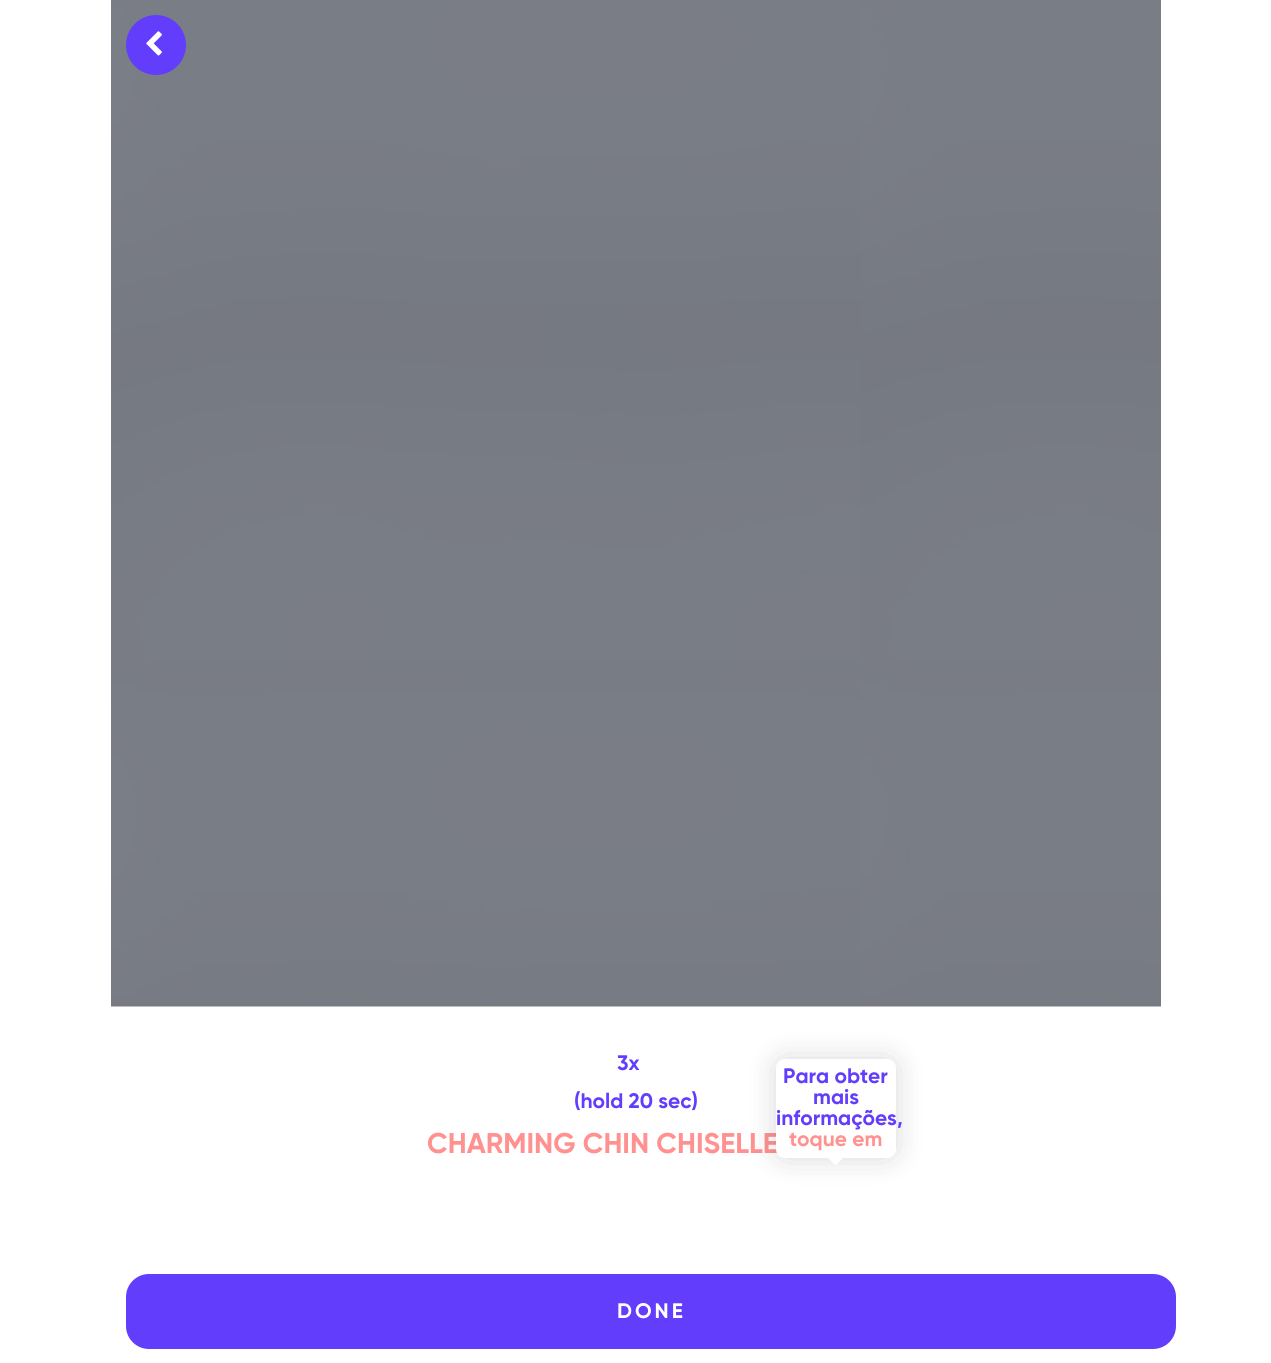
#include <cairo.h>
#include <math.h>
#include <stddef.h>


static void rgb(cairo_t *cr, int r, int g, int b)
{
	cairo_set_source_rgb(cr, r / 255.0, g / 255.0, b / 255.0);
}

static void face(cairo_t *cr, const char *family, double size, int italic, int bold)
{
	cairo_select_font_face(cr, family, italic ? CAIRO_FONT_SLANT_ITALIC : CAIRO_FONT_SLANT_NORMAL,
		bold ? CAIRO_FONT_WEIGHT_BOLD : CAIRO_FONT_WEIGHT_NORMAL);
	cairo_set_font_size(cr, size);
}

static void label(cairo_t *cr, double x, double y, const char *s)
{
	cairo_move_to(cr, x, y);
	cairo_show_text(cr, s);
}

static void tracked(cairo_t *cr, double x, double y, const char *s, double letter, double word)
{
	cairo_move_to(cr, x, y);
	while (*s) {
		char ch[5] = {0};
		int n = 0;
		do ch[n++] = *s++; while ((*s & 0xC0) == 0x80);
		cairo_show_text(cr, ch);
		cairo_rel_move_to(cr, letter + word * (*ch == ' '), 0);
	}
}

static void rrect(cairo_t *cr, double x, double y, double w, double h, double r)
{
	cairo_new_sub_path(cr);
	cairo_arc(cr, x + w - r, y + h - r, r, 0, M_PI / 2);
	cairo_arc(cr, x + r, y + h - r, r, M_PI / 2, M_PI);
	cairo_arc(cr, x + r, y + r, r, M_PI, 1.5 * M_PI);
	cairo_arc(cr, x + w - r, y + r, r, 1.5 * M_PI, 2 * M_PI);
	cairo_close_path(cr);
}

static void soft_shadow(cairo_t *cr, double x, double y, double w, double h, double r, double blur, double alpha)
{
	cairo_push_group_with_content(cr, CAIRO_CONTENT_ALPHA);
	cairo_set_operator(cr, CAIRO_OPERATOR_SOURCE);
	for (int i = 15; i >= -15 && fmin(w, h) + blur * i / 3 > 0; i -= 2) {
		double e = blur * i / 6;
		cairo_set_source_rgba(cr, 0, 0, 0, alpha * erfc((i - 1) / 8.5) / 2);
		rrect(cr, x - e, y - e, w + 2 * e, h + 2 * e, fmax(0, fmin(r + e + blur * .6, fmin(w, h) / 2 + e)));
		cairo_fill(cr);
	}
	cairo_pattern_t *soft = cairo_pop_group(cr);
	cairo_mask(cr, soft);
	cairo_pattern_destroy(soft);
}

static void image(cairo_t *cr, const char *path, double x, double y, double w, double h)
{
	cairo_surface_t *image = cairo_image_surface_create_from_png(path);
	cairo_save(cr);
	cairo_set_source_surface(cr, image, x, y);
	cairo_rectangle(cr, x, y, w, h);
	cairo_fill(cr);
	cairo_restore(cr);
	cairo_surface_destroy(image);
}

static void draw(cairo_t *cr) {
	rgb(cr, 255, 255, 255);
	cairo_paint(cr);
	image(cr, "image1.png", 111, 0, 1050, 1007);
	rgb(cr, 98, 61, 252);
	cairo_arc(cr, 156, 45, 30, 0, 2 * M_PI);
	cairo_fill(cr);
	image(cr, "image0.png", 146, 31, 16, 25);
	face(cr, "Gilroy", 21, 0, 1);
	label(cr, 617, 1070, "3x");
	label(cr, 574, 1108, "(hold 20 sec)");
	face(cr, "Gilroy", 28.5, 0, 1);
	rgb(cr, 255, 145, 144);
	label(cr, 427, 1153, "CHARMING CHIN CHISELLE");
	rgb(cr, 0, 0, 0);
	soft_shadow(cr, 776, 1059, 120, 99, 9, 15, 0.15);
	rgb(cr, 255, 255, 255);
	rrect(cr, 776, 1059, 120, 99, 9);
	cairo_fill(cr);
	face(cr, "Gilroy", 21, 0, 1);
	rgb(cr, 98, 61, 252);
	label(cr, 783, 1083, "Para obter");
	label(cr, 813, 1104, "mais");
	label(cr, 776, 1125, "informações,");
	rgb(cr, 255, 145, 144);
	label(cr, 789, 1146, "toque em");
	rgb(cr, 255, 255, 255);
	cairo_new_path(cr);
	cairo_move_to(cr, 828, 1158);
	cairo_line_to(cr, 843, 1158);
	cairo_line_to(cr, 835.5, 1165.5);
	cairo_close_path(cr);
	cairo_fill(cr);
	rgb(cr, 98, 61, 252);
	rrect(cr, 126, 1274, 1050, 75, 23);
	cairo_fill(cr);
	rgb(cr, 255, 255, 255);
	tracked(cr, 617, 1318, "DONE", 3, 0);
}

int main(void) {
	cairo_surface_t *surface = cairo_image_surface_create(CAIRO_FORMAT_RGB24, 1271, 1363);
	cairo_t *cr = cairo_create(surface);
	cairo_font_options_t *options = cairo_font_options_create();
	cairo_font_options_set_hint_metrics(options, CAIRO_HINT_METRICS_OFF);
	cairo_font_options_set_hint_style(options, CAIRO_HINT_STYLE_NONE);
	cairo_set_font_options(cr, options);
	cairo_set_miter_limit(cr, 4);
	draw(cr);
	cairo_surface_write_to_png(surface, "render.png");
	cairo_font_options_destroy(options);
	cairo_destroy(cr);
	cairo_surface_destroy(surface);
	return 0;
}
